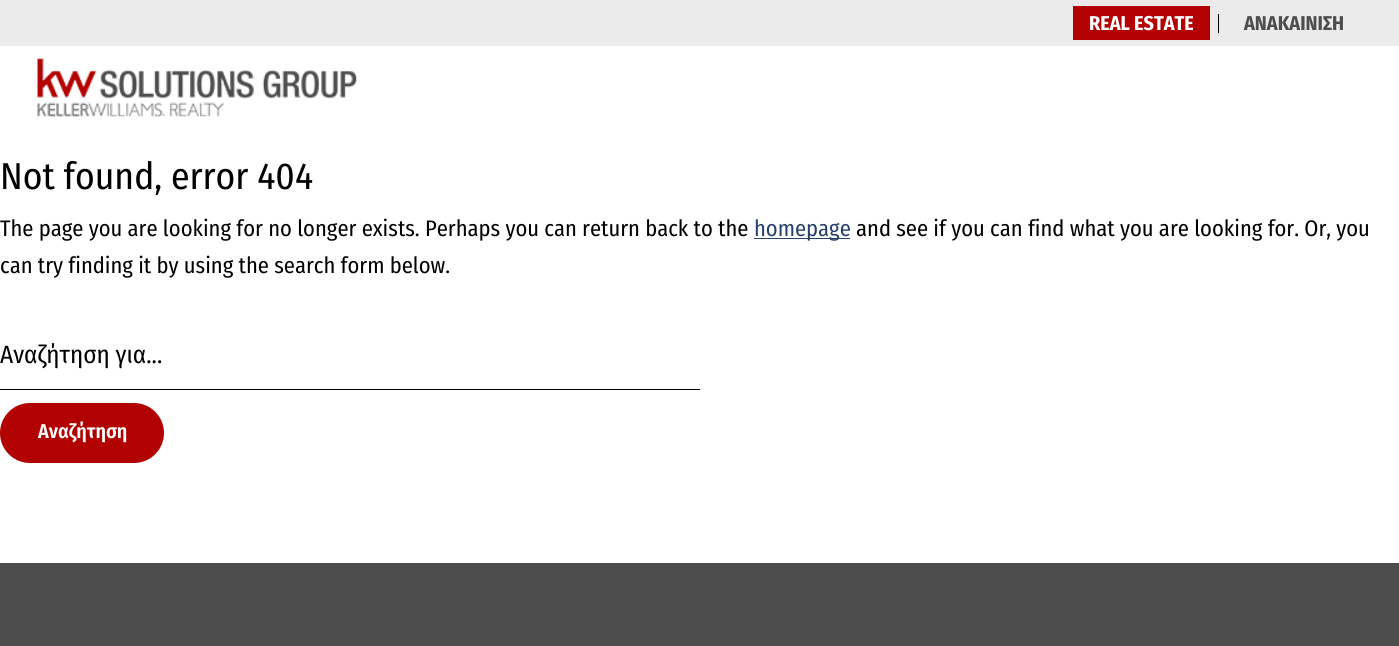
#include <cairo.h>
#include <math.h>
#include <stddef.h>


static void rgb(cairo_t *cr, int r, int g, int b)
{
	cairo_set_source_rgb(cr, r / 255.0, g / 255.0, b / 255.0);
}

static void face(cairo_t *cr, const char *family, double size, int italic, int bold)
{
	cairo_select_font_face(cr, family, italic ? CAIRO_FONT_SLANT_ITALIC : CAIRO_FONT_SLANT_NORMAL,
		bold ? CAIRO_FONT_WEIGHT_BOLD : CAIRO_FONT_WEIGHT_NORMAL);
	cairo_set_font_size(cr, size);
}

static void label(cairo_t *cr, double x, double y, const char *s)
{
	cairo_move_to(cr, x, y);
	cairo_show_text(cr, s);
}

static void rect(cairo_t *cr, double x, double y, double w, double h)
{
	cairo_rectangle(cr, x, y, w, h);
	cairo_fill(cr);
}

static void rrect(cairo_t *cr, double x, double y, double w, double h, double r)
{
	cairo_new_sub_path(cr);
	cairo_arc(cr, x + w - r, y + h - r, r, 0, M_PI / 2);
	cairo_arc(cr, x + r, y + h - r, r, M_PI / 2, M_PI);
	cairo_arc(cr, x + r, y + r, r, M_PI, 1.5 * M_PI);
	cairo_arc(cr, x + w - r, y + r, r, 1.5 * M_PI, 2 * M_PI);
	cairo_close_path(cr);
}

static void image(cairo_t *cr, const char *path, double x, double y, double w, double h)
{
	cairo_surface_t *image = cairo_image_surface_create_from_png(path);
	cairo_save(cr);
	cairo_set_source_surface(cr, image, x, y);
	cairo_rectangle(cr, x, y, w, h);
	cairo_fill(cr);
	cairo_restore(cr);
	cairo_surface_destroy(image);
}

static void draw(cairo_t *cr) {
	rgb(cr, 255, 255, 255);
	cairo_paint(cr);
	rgb(cr, 235, 235, 235);
	rect(cr, 0, 0, 1399, 46);
	rgb(cr, 180, 1, 1);
	rect(cr, 1073, 6, 137, 34);
	face(cr, "Fira Sans Condensed", 20, 0, 1);
	rgb(cr, 255, 255, 255);
	label(cr, 1089, 30, "REAL ESTATE");
	rgb(cr, 0, 0, 0);
	rect(cr, 1218, 14, 1, 19);
	rgb(cr, 77, 77, 77);
	label(cr, 1244, 30, "ΑΝΑΚΑΙΝΙΣΗ");
	image(cr, "image0.png", 37, 58, 320, 59);
	face(cr, "Fira Sans Condensed", 37.5, 0, 0);
	rgb(cr, 0, 0, 0);
	label(cr, 0, 189, "Not found, error 404");
	face(cr, "Fira Sans Condensed", 22.5, 0, 0);
	label(cr, 0, 236, "The page you are looking for no longer exists. Perhaps you can return back to the");
	rgb(cr, 38, 65, 106);
	rect(cr, 754, 238, 96, 1);
	label(cr, 754, 236, "homepage");
	rgb(cr, 0, 0, 0);
	label(cr, 856, 236, "and see if you can find what you are looking for. Or, you");
	label(cr, 0, 273, "can try finding it by using the search form below.");
	rect(cr, 0, 389, 700, 1);
	face(cr, "Fira Sans Condensed", 25, 0, 0);
	label(cr, 0, 363, "Αναζήτηση για...");
	rgb(cr, 177, 2, 1);
	rrect(cr, 0, 403, 164, 60, 30);
	cairo_fill(cr);
	face(cr, "Fira Sans Condensed SemiBold", 20, 0, 0);
	rgb(cr, 255, 255, 255);
	label(cr, 38, 438, "Αναζήτηση");
	rgb(cr, 77, 77, 77);
	rect(cr, 0, 563, 1399, 83);
}

int main(void) {
	cairo_surface_t *surface = cairo_image_surface_create(CAIRO_FORMAT_RGB24, 1399, 646);
	cairo_t *cr = cairo_create(surface);
	cairo_font_options_t *options = cairo_font_options_create();
	cairo_font_options_set_hint_metrics(options, CAIRO_HINT_METRICS_OFF);
	cairo_font_options_set_hint_style(options, CAIRO_HINT_STYLE_NONE);
	cairo_set_font_options(cr, options);
	cairo_set_miter_limit(cr, 4);
	draw(cr);
	cairo_surface_write_to_png(surface, "render.png");
	cairo_font_options_destroy(options);
	cairo_destroy(cr);
	cairo_surface_destroy(surface);
	return 0;
}
